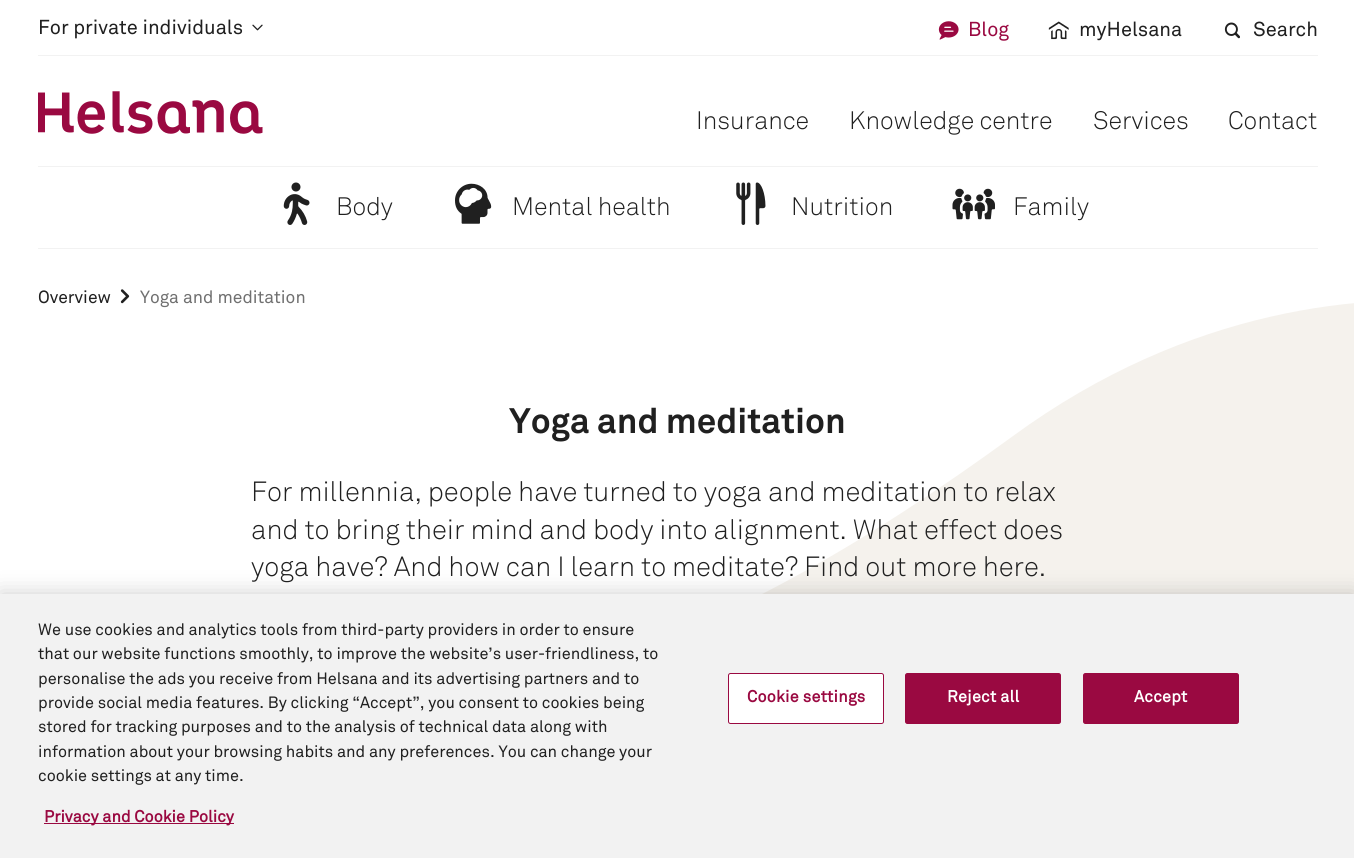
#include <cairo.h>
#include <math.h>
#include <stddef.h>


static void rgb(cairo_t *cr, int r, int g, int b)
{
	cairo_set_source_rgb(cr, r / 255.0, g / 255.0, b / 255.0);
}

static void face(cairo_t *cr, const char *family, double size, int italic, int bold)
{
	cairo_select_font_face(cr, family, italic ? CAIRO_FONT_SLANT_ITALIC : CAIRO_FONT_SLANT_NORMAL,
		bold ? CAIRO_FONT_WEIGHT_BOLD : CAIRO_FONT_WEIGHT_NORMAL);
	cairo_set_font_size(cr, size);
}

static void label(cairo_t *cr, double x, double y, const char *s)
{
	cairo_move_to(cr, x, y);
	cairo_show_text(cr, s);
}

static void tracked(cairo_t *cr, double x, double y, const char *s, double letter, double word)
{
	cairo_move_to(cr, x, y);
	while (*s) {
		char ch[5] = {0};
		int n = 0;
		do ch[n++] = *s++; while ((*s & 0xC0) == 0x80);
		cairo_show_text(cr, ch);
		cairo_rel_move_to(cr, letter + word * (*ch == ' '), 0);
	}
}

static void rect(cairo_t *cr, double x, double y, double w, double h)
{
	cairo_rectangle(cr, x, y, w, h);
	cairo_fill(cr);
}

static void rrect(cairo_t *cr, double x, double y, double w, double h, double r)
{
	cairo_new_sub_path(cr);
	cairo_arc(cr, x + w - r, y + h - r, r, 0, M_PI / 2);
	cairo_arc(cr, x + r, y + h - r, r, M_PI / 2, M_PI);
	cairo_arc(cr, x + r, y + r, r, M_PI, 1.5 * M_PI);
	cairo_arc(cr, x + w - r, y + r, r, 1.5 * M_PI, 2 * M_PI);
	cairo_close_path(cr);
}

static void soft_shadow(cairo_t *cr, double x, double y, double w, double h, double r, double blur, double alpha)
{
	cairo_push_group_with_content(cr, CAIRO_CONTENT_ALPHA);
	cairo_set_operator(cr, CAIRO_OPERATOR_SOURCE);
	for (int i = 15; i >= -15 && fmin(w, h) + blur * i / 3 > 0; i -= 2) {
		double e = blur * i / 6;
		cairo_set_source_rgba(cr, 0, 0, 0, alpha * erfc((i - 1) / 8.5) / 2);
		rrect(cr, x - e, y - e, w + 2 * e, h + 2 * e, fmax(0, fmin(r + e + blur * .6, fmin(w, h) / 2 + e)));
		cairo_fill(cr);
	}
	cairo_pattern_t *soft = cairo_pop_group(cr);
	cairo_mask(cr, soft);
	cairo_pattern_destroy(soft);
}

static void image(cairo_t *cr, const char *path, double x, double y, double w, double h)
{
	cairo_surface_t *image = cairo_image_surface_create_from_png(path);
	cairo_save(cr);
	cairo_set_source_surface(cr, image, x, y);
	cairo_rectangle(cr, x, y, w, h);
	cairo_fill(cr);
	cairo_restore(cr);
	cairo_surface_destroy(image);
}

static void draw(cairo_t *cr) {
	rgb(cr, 255, 255, 255);
	cairo_paint(cr);
	rgb(cr, 242, 242, 242);
	rect(cr, 38, 55, 1280, 1);
	face(cr, "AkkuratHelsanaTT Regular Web", 20, 0, 0);
	rgb(cr, 32, 32, 32);
	label(cr, 38, 34, "For private individuals");
	image(cr, "image0.png", 252, 24, 11, 7);
	image(cr, "image1.png", 938, 21, 21, 19);
	rgb(cr, 154, 9, 65);
	label(cr, 968, 36, "Blog");
	image(cr, "image2.png", 1048, 21, 21, 19);
	rgb(cr, 32, 32, 32);
	label(cr, 1079, 36, "myHelsana");
	image(cr, "image3.png", 1224, 22, 16, 17);
	label(cr, 1253, 36, "Search");
	image(cr, "image4.png", 38, 91, 225, 43);
	face(cr, "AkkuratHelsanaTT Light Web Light", 25, 0, 0);
	label(cr, 696, 129, "Insurance");
	label(cr, 849, 129, "Knowledge centre");
	label(cr, 1093, 129, "Services");
	label(cr, 1228, 129, "Contact");
	rgb(cr, 242, 242, 242);
	rect(cr, 38, 166, 1280, 1);
	image(cr, "image5.png", 283, 182, 27, 43);
	rgb(cr, 32, 32, 32);
	label(cr, 336, 215, "Body");
	image(cr, "image6.png", 455, 183, 37, 41);
	label(cr, 512, 215, "Mental health");
	image(cr, "image7.png", 736, 182, 30, 43);
	label(cr, 791, 215, "Nutrition");
	image(cr, "image8.png", 952, 188, 43, 32);
	label(cr, 1013, 215, "Family");
	rgb(cr, 242, 242, 242);
	rect(cr, 38, 248, 1280, 1);
	rgb(cr, 245, 242, 237);
	cairo_new_path(cr);
	cairo_move_to(cr, 1042, 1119);
	cairo_curve_to(cr, 455, 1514, 85, 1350, -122, 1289);
	cairo_line_to(cr, -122, 595);
	cairo_curve_to(cr, 342, 854, 736, 638, 1013, 436);
	cairo_curve_to(cr, 1189, 307, 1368, 291, 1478, 304);
	cairo_line_to(cr, 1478, 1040);
	cairo_curve_to(cr, 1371, 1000, 1188, 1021, 1042, 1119);
	cairo_close_path(cr);
	cairo_fill(cr);
	face(cr, "AkkuratHelsanaTT Regular Web", 17.5, 0, 0);
	rgb(cr, 32, 32, 32);
	label(cr, 38, 303, "Overview");
	image(cr, "image9.png", 120, 289, 10, 15);
	rgb(cr, 112, 112, 112);
	label(cr, 140, 303, "Yoga and meditation");
	face(cr, "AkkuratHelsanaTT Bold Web", 35, 0, 1);
	rgb(cr, 32, 32, 32);
	label(cr, 509, 433, "Yoga and meditation");
	face(cr, "AkkuratHelsanaTT Light Web Light", 27.5, 0, 0);
	label(cr, 251, 501, "For millennia, people have turned to yoga and meditation to relax");
	label(cr, 251, 539, "and to bring their mind and body into alignment. What effect does");
	label(cr, 251, 576, "yoga have? And how can I learn to meditate? Find out more here.");
	rgb(cr, 0, 0, 0);
	soft_shadow(cr, 0, 594, 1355, 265, 0, 11, 0.2);
	rgb(cr, 242, 242, 242);
	rect(cr, 0, 594, 1354, 264);
	face(cr, "AkkuratHelsanaTT Regular Web", 16.25, 0, 0);
	rgb(cr, 32, 32, 32);
	label(cr, 38, 635, "We use cookies and analytics tools from third-party providers in order to ensure");
	label(cr, 38, 659, "that our website functions smoothly, to improve the website’s user-friendliness, to");
	label(cr, 38, 684, "personalise the ads you receive from Helsana and its advertising partners and to");
	label(cr, 38, 708, "provide social media features. By clicking “Accept”, you consent to cookies being");
	label(cr, 38, 732, "stored for tracking purposes and to the analysis of technical data along with");
	label(cr, 38, 757, "information about your browsing habits and any preferences. You can change your");
	label(cr, 38, 781, "cookie settings at any time.");
	rgb(cr, 154, 9, 65);
	rect(cr, 44, 823, 190, 1);
	face(cr, "AkkuratHelsanaTT Regular Web", 16.25, 0, 1);
	label(cr, 44, 822, "Privacy and Cookie Policy");
	rgb(cr, 255, 255, 255);
	rrect(cr, 728.5, 673.5, 155, 50, 2);
	cairo_fill_preserve(cr);
	rgb(cr, 154, 9, 65);
	cairo_set_line_width(cr, 1);
	cairo_stroke(cr);
	tracked(cr, 747, 702, "Cookie settings", 0.2, 0);
	rrect(cr, 905.5, 673.5, 155, 50, 2);
	cairo_fill_preserve(cr);
	cairo_stroke(cr);
	rgb(cr, 255, 255, 255);
	tracked(cr, 947, 702, "Reject all", 0.2, 0);
	rgb(cr, 154, 9, 65);
	rrect(cr, 1083.5, 673.5, 155, 50, 2);
	cairo_fill_preserve(cr);
	cairo_stroke(cr);
	rgb(cr, 255, 255, 255);
	tracked(cr, 1134, 702, "Accept", 0.2, 0);
}

int main(void) {
	cairo_surface_t *surface = cairo_image_surface_create(CAIRO_FORMAT_RGB24, 1354, 858);
	cairo_t *cr = cairo_create(surface);
	cairo_font_options_t *options = cairo_font_options_create();
	cairo_font_options_set_hint_metrics(options, CAIRO_HINT_METRICS_OFF);
	cairo_font_options_set_hint_style(options, CAIRO_HINT_STYLE_NONE);
	cairo_set_font_options(cr, options);
	cairo_set_miter_limit(cr, 4);
	draw(cr);
	cairo_surface_write_to_png(surface, "render.png");
	cairo_font_options_destroy(options);
	cairo_destroy(cr);
	cairo_surface_destroy(surface);
	return 0;
}
